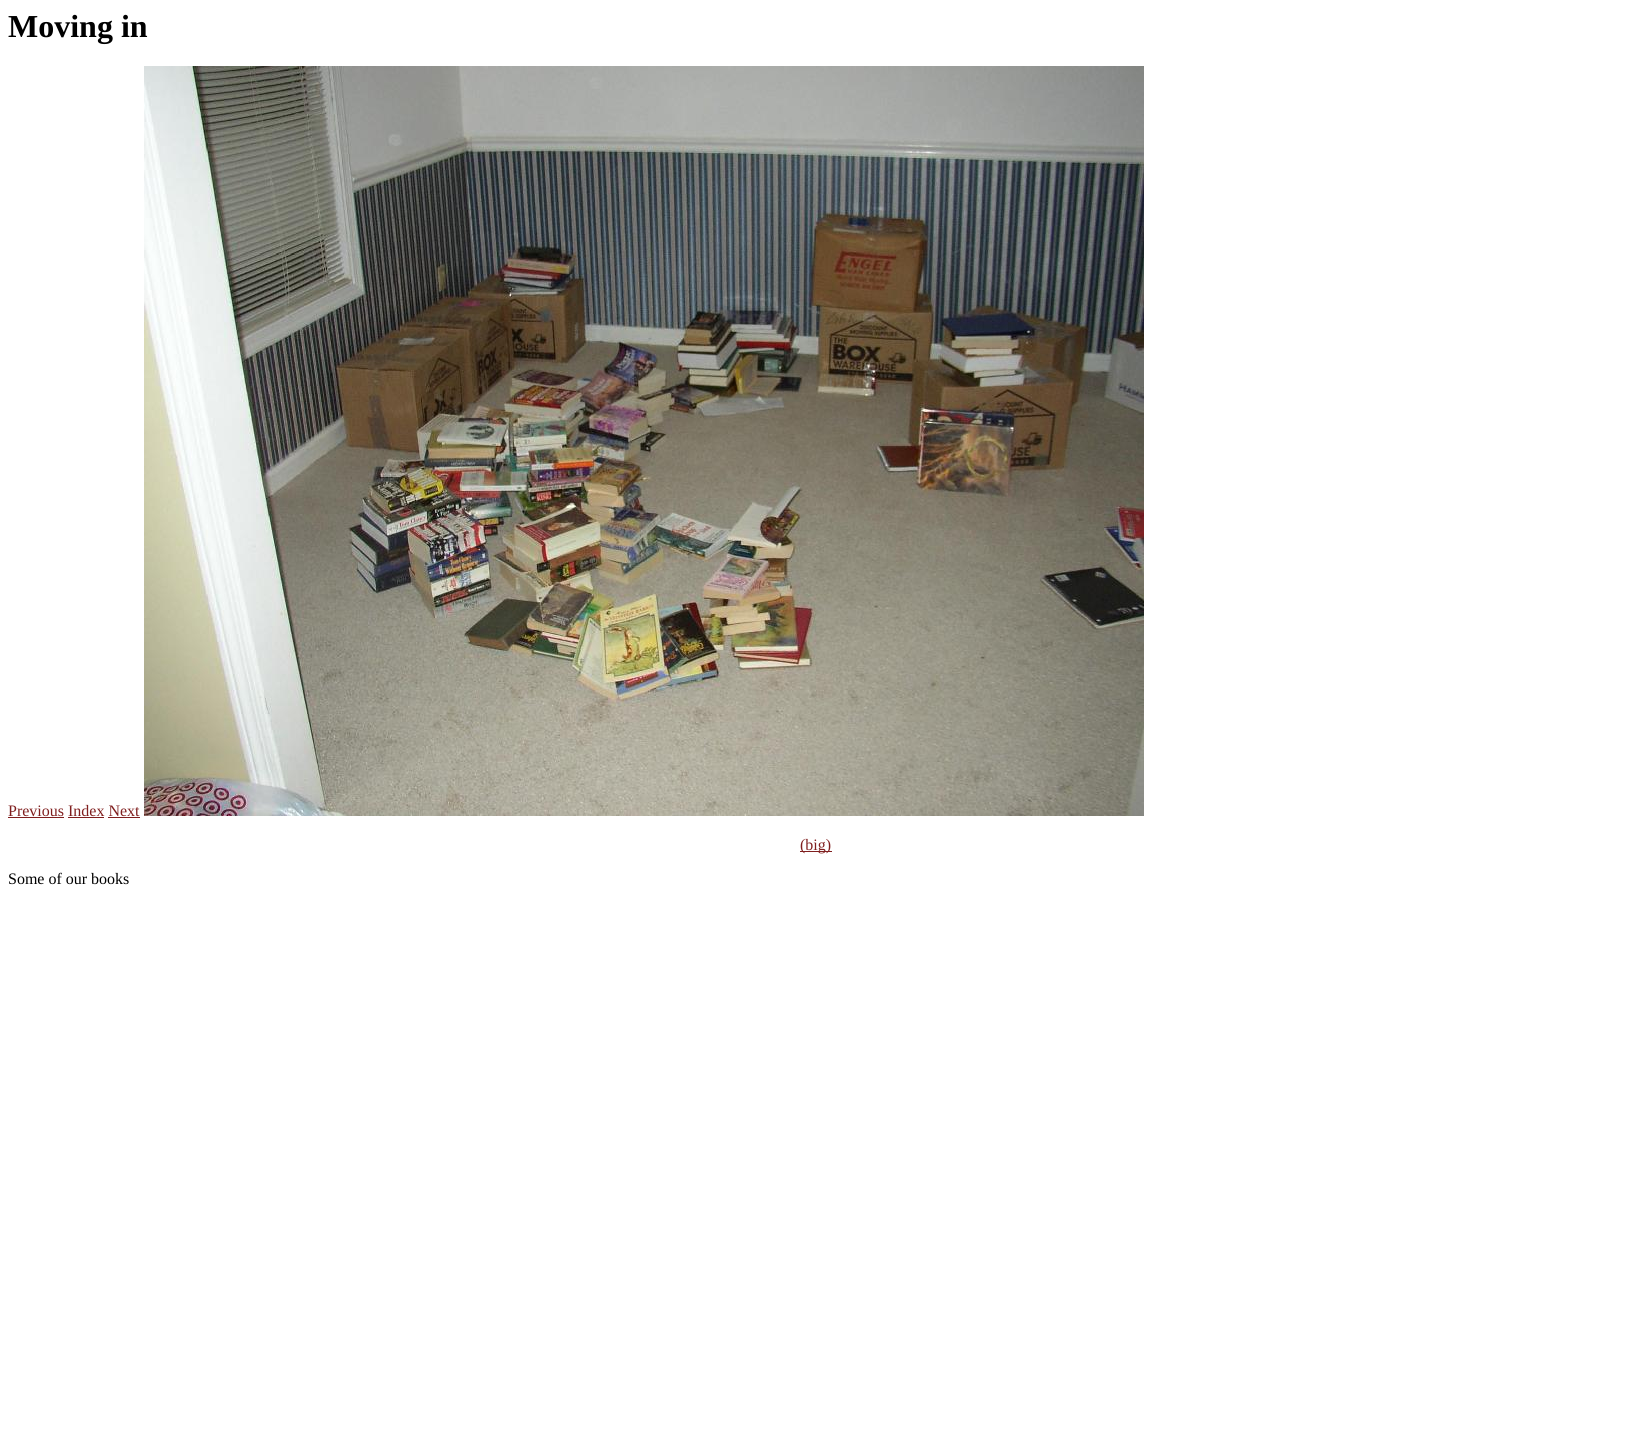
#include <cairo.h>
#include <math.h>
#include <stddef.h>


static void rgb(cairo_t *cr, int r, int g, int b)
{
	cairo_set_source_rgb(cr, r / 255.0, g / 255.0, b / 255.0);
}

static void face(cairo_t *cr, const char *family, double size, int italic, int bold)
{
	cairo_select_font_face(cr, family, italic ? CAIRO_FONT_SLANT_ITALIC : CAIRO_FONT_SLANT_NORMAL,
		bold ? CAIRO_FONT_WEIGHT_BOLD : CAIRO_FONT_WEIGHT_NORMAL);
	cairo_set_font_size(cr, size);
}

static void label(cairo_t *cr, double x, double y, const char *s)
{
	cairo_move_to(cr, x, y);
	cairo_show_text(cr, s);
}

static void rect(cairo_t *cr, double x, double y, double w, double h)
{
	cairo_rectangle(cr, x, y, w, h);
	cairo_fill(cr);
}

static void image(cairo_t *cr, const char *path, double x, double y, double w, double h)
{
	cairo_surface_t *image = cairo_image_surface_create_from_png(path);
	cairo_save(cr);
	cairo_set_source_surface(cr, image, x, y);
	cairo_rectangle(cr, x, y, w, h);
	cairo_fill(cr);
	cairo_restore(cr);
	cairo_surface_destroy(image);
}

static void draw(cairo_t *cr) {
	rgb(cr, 255, 255, 255);
	cairo_paint(cr);
	face(cr, "Liberation Serif", 32, 0, 1);
	rgb(cr, 0, 0, 0);
	label(cr, 8, 37, "Moving in");
	face(cr, "Liberation Serif", 16, 0, 0);
	rgb(cr, 128, 31, 31);
	label(cr, 8, 816, "Previous Index Next");
	rect(cr, 8, 817, 56, 1);
	image(cr, "image0.png", 144, 66, 1000, 750);
	rect(cr, 68, 817, 36, 1);
	rect(cr, 108, 817, 32, 1);
	rect(cr, 800, 851, 32, 1);
	label(cr, 800, 850, "(big)");
	rgb(cr, 0, 0, 0);
	label(cr, 8, 884, "Some of our books");
}

int main(void) {
	cairo_surface_t *surface = cairo_image_surface_create(CAIRO_FORMAT_RGB24, 1632, 1444);
	cairo_t *cr = cairo_create(surface);
	cairo_font_options_t *options = cairo_font_options_create();
	cairo_font_options_set_hint_metrics(options, CAIRO_HINT_METRICS_OFF);
	cairo_font_options_set_hint_style(options, CAIRO_HINT_STYLE_NONE);
	cairo_set_font_options(cr, options);
	cairo_set_miter_limit(cr, 4);
	draw(cr);
	cairo_surface_write_to_png(surface, "render.png");
	cairo_font_options_destroy(options);
	cairo_destroy(cr);
	cairo_surface_destroy(surface);
	return 0;
}
